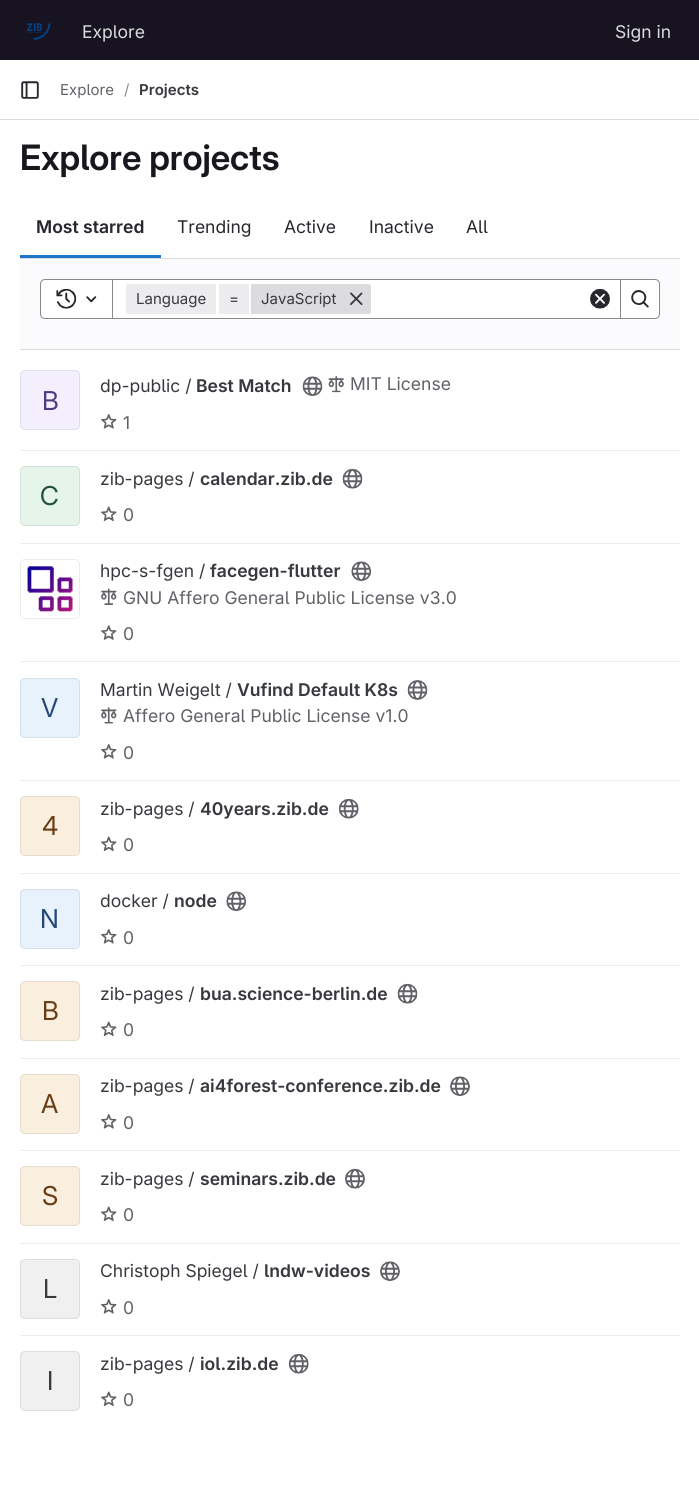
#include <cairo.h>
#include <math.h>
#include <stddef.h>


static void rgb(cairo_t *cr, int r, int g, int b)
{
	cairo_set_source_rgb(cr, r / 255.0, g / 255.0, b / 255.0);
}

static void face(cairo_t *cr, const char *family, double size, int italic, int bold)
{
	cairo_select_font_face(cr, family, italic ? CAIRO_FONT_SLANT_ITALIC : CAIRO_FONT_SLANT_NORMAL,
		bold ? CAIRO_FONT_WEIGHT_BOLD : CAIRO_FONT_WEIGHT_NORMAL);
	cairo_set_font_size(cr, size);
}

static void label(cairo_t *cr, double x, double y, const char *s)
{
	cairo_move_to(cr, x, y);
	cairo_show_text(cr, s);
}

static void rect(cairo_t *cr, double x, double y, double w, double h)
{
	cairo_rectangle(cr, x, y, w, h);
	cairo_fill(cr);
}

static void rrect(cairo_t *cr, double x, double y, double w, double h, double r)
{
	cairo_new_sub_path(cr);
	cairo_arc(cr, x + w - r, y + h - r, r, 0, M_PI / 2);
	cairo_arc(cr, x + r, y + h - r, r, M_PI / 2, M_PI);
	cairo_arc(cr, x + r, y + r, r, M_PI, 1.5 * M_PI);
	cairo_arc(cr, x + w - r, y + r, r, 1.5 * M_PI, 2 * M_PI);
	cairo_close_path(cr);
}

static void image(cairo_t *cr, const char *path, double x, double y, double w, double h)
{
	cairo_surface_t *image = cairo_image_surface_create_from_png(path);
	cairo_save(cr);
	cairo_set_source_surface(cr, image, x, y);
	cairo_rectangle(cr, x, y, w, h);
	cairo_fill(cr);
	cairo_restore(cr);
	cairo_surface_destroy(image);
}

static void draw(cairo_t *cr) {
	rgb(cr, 255, 255, 255);
	cairo_paint(cr);
	rgb(cr, 23, 19, 33);
	rect(cr, 0, 0, 699, 60);
	image(cr, "image0.png", 26, 23, 25, 17);
	face(cr, "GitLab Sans", 17.5, 0, 0);
	rgb(cr, 220, 220, 222);
	label(cr, 82, 38, "Explore");
	label(cr, 615, 38, "Sign in");
	rect(cr, 0, 119, 699, 1);
	image(cr, "image1.png", 21, 81, 18, 18);
	face(cr, "GitLab Sans", 15, 0, 0);
	rgb(cr, 98, 97, 104);
	label(cr, 60, 95, "Explore");
	rgb(cr, 137, 136, 141);
	label(cr, 124, 95, "/");
	face(cr, "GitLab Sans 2 SemiBold", 15, 0, 0);
	rgb(cr, 58, 56, 63);
	label(cr, 139, 95, "Projects");
	face(cr, "GitLab Sans SemiBold", 35, 0, 0);
	rgb(cr, 24, 23, 29);
	label(cr, 20, 170, "Explore projects");
	face(cr, "GitLab Sans 2 SemiBold", 17.5, 0, 0);
	rgb(cr, 40, 39, 45);
	label(cr, 36, 233, "Most starred");
	rgb(cr, 31, 117, 203);
	rect(cr, 20, 255, 141, 3);
	face(cr, "GitLab Sans", 17.5, 0, 0);
	rgb(cr, 40, 39, 45);
	label(cr, 177, 233, "Trending");
	label(cr, 284, 233, "Active");
	label(cr, 369, 233, "Inactive");
	label(cr, 466, 233, "All");
	rgb(cr, 251, 250, 253);
	rect(cr, 20, 259, 660, 90);
	rgb(cr, 220, 220, 222);
	rect(cr, 20, 258, 660, 1);
	rect(cr, 20, 349, 660, 1);
	rgb(cr, 255, 255, 255);
	rect(cr, 113, 280, 507, 38);
	cairo_rectangle(cr, 111.5, 279.5, 509, 39);
	rgb(cr, 137, 136, 141);
	cairo_set_line_width(cr, 1);
	cairo_stroke(cr);
	rgb(cr, 255, 255, 255);
	cairo_new_path(cr);
	cairo_move_to(cr, 45, 279.5);
	cairo_line_to(cr, 112.5, 279.5);
	cairo_line_to(cr, 112.5, 318.5);
	cairo_line_to(cr, 45, 318.5);
	cairo_curve_to(cr, 42.5, 318.5, 40.5, 316.5, 40.5, 314);
	cairo_line_to(cr, 40.5, 284);
	cairo_curve_to(cr, 40.5, 281.5, 42.5, 279.5, 45, 279.5);
	cairo_close_path(cr);
	cairo_fill_preserve(cr);
	rgb(cr, 137, 136, 141);
	cairo_stroke(cr);
	image(cr, "image2.png", 56, 288, 21, 21);
	image(cr, "image3.png", 86, 296, 11, 7);
	rgb(cr, 236, 236, 239);
	cairo_new_path(cr);
	cairo_move_to(cr, 128.5, 284);
	cairo_line_to(cr, 216, 284);
	cairo_line_to(cr, 216, 314);
	cairo_line_to(cr, 128.5, 314);
	cairo_curve_to(cr, 127, 314, 126, 313, 126, 311.5);
	cairo_line_to(cr, 126, 286.5);
	cairo_curve_to(cr, 126, 285, 127, 284, 128.5, 284);
	cairo_close_path(cr);
	cairo_fill(cr);
	face(cr, "GitLab Sans", 15, 0, 0);
	rgb(cr, 58, 56, 63);
	label(cr, 136, 304, "Language");
	rgb(cr, 236, 236, 239);
	rect(cr, 219, 284, 30, 30);
	rgb(cr, 58, 56, 63);
	label(cr, 229, 304, "=");
	rgb(cr, 220, 220, 222);
	cairo_new_path(cr);
	cairo_move_to(cr, 251, 284);
	cairo_line_to(cr, 368.5, 284);
	cairo_curve_to(cr, 370, 284, 371, 285, 371, 286.5);
	cairo_line_to(cr, 371, 311.5);
	cairo_curve_to(cr, 371, 313, 370, 314, 368.5, 314);
	cairo_line_to(cr, 251, 314);
	cairo_close_path(cr);
	cairo_fill(cr);
	rgb(cr, 58, 56, 63);
	label(cr, 261, 304, "JavaScript");
	image(cr, "image4.png", 350, 292, 13, 13);
	image(cr, "image5.png", 590, 288, 20, 21);
	rgb(cr, 255, 255, 255);
	cairo_new_path(cr);
	cairo_move_to(cr, 620.5, 279.5);
	cairo_line_to(cr, 655, 279.5);
	cairo_curve_to(cr, 657.5, 279.5, 659.5, 281.5, 659.5, 284);
	cairo_line_to(cr, 659.5, 314);
	cairo_curve_to(cr, 659.5, 316.5, 657.5, 318.5, 655, 318.5);
	cairo_line_to(cr, 620.5, 318.5);
	cairo_close_path(cr);
	cairo_fill_preserve(cr);
	rgb(cr, 137, 136, 141);
	cairo_stroke(cr);
	image(cr, "image6.png", 631, 290, 18, 18);
	rgb(cr, 236, 236, 239);
	rect(cr, 20, 450, 660, 1);
	rgb(cr, 243, 239, 252);
	rrect(cr, 20, 370, 60, 60, 5);
	cairo_fill(cr);
	rrect(cr, 20.5, 370.5, 59, 59, 4.5);
	cairo_set_source_rgba(cr, 0.02, 0.02, 0.024, 0.08);
	cairo_stroke(cr);
	face(cr, "GitLab Sans 2", 26, 0, 0);
	rgb(cr, 73, 60, 131);
	label(cr, 42, 410, "B");
	face(cr, "GitLab Sans", 17.5, 0, 0);
	rgb(cr, 58, 56, 63);
	label(cr, 100, 392, "dp-public /");
	face(cr, "GitLab Sans 2 SemiBold", 17.5, 0, 0);
	label(cr, 196, 392, "Best Match");
	image(cr, "image7.png", 302, 376, 21, 21);
	image(cr, "image8.png", 328, 376, 16, 17);
	face(cr, "GitLab Sans", 17.5, 0, 0);
	rgb(cr, 98, 97, 104);
	label(cr, 350, 390, "MIT License");
	image(cr, "image9.png", 101, 414, 16, 15);
	label(cr, 123, 429, "1");
	rgb(cr, 236, 236, 239);
	rect(cr, 20, 543, 660, 1);
	rgb(cr, 229, 245, 234);
	rrect(cr, 20, 466, 60, 60, 5);
	cairo_fill(cr);
	rrect(cr, 20.5, 466.5, 59, 59, 4.5);
	cairo_set_source_rgba(cr, 0.02, 0.02, 0.024, 0.08);
	cairo_stroke(cr);
	face(cr, "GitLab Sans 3", 26, 0, 0);
	rgb(cr, 34, 81, 49);
	label(cr, 40, 505, "C");
	face(cr, "GitLab Sans", 17.5, 0, 0);
	rgb(cr, 58, 56, 63);
	label(cr, 100, 485, "zib-pages /");
	face(cr, "GitLab Sans 2 SemiBold", 17.5, 0, 0);
	label(cr, 200, 485, "calendar.zib.de");
	image(cr, "image10.png", 342, 468, 21, 21);
	image(cr, "image11.png", 101, 506, 16, 15);
	face(cr, "GitLab Sans", 17.5, 0, 0);
	rgb(cr, 98, 97, 104);
	label(cr, 123, 521, "0");
	rgb(cr, 236, 236, 239);
	rect(cr, 20, 661, 660, 1);
	image(cr, "image12.png", 27, 566, 46, 46);
	rrect(cr, 20.5, 559.5, 59, 59, 4.5);
	rgb(cr, 235, 235, 235);
	cairo_stroke(cr);
	rgb(cr, 58, 56, 63);
	label(cr, 100, 577, "hpc-s-fgen /");
	face(cr, "GitLab Sans 2 SemiBold", 17.5, 0, 0);
	label(cr, 210, 577, "facegen-flutter");
	image(cr, "image13.png", 351, 561, 21, 21);
	image(cr, "image14.png", 101, 588, 16, 17);
	face(cr, "GitLab Sans", 17.5, 0, 0);
	rgb(cr, 98, 97, 104);
	label(cr, 123, 604, "GNU Affero General Public License v3.0");
	image(cr, "image15.png", 101, 625, 16, 15);
	label(cr, 123, 640, "0");
	rgb(cr, 236, 236, 239);
	rect(cr, 20, 780, 660, 1);
	rgb(cr, 231, 242, 252);
	rrect(cr, 20, 678, 60, 60, 5);
	cairo_fill(cr);
	rrect(cr, 20.5, 678.5, 59, 59, 4.5);
	cairo_set_source_rgba(cr, 0.02, 0.02, 0.024, 0.08);
	cairo_stroke(cr);
	face(cr, "GitLab Sans 2", 26, 0, 0);
	rgb(cr, 40, 71, 121);
	label(cr, 41, 717, "V");
	face(cr, "GitLab Sans", 17.5, 0, 0);
	rgb(cr, 58, 56, 63);
	label(cr, 100, 696, "Martin Weigelt /");
	face(cr, "GitLab Sans 2 SemiBold", 17.5, 0, 0);
	label(cr, 237, 696, "Vufind Default K8s");
	image(cr, "image16.png", 407, 680, 21, 20);
	image(cr, "image17.png", 101, 707, 16, 17);
	face(cr, "GitLab Sans", 17.5, 0, 0);
	rgb(cr, 98, 97, 104);
	label(cr, 123, 722, "Affero General Public License v1.0");
	image(cr, "image9.png", 101, 744, 16, 15);
	label(cr, 123, 759, "0");
	rgb(cr, 236, 236, 239);
	rect(cr, 20, 873, 660, 1);
	rgb(cr, 250, 239, 222);
	rrect(cr, 20, 796, 60, 60, 5);
	cairo_fill(cr);
	rrect(cr, 20.5, 796.5, 59, 59, 4.5);
	cairo_set_source_rgba(cr, 0.02, 0.02, 0.024, 0.08);
	cairo_stroke(cr);
	face(cr, "GitLab Sans 2", 26, 0, 0);
	rgb(cr, 105, 60, 20);
	label(cr, 42, 835, "4");
	face(cr, "GitLab Sans", 17.5, 0, 0);
	rgb(cr, 58, 56, 63);
	label(cr, 100, 815, "zib-pages /");
	face(cr, "GitLab Sans 2 SemiBold", 17.5, 0, 0);
	label(cr, 200, 815, "40years.zib.de");
	image(cr, "image18.png", 338, 798, 21, 21);
	image(cr, "image19.png", 101, 836, 16, 15);
	face(cr, "GitLab Sans", 17.5, 0, 0);
	rgb(cr, 98, 97, 104);
	label(cr, 123, 851, "0");
	rgb(cr, 236, 236, 239);
	rect(cr, 20, 965, 660, 1);
	rgb(cr, 231, 242, 252);
	rrect(cr, 20, 889, 60, 60, 5);
	cairo_fill(cr);
	rrect(cr, 20.5, 889.5, 59, 59, 4.5);
	cairo_set_source_rgba(cr, 0.02, 0.02, 0.024, 0.08);
	cairo_stroke(cr);
	face(cr, "GitLab Sans 2", 26, 0, 0);
	rgb(cr, 40, 71, 121);
	label(cr, 40, 928, "N");
	face(cr, "GitLab Sans", 17.5, 0, 0);
	rgb(cr, 58, 56, 63);
	label(cr, 100, 907, "docker /");
	face(cr, "GitLab Sans 2 SemiBold", 17.5, 0, 0);
	label(cr, 174, 907, "node");
	image(cr, "image13.png", 226, 891, 21, 21);
	image(cr, "image9.png", 101, 929, 16, 15);
	face(cr, "GitLab Sans", 17.5, 0, 0);
	rgb(cr, 98, 97, 104);
	label(cr, 123, 944, "0");
	rgb(cr, 236, 236, 239);
	rect(cr, 20, 1058, 660, 1);
	rgb(cr, 250, 239, 222);
	rrect(cr, 20, 981, 60, 60, 5);
	cairo_fill(cr);
	rrect(cr, 20.5, 981.5, 59, 59, 4.5);
	cairo_set_source_rgba(cr, 0.02, 0.02, 0.024, 0.08);
	cairo_stroke(cr);
	face(cr, "GitLab Sans 2", 26, 0, 0);
	rgb(cr, 105, 60, 20);
	label(cr, 42, 1020, "B");
	face(cr, "GitLab Sans", 17.5, 0, 0);
	rgb(cr, 58, 56, 63);
	label(cr, 100, 1000, "zib-pages /");
	face(cr, "GitLab Sans 2 SemiBold", 17.5, 0, 0);
	label(cr, 200, 1000, "bua.science-berlin.de");
	image(cr, "image10.png", 397, 983, 21, 21);
	image(cr, "image19.png", 101, 1021, 16, 15);
	face(cr, "GitLab Sans", 17.5, 0, 0);
	rgb(cr, 98, 97, 104);
	label(cr, 123, 1036, "0");
	rgb(cr, 236, 236, 239);
	rect(cr, 20, 1150, 660, 1);
	rgb(cr, 250, 239, 222);
	rrect(cr, 20, 1074, 60, 60, 5);
	cairo_fill(cr);
	rrect(cr, 20.5, 1074.5, 59, 59, 4.5);
	cairo_set_source_rgba(cr, 0.02, 0.02, 0.024, 0.08);
	cairo_stroke(cr);
	face(cr, "GitLab Sans 2", 26, 0, 0);
	rgb(cr, 105, 60, 20);
	label(cr, 41, 1113, "A");
	face(cr, "GitLab Sans", 17.5, 0, 0);
	rgb(cr, 58, 56, 63);
	label(cr, 100, 1092, "zib-pages /");
	face(cr, "GitLab Sans 2 SemiBold", 17.5, 0, 0);
	label(cr, 200, 1092, "ai4forest-conference.zib.de");
	image(cr, "image20.png", 450, 1076, 20, 21);
	image(cr, "image9.png", 101, 1114, 16, 15);
	face(cr, "GitLab Sans", 17.5, 0, 0);
	rgb(cr, 98, 97, 104);
	label(cr, 123, 1129, "0");
	rgb(cr, 236, 236, 239);
	rect(cr, 20, 1243, 660, 1);
	rgb(cr, 250, 239, 222);
	rrect(cr, 20, 1166, 60, 60, 5);
	cairo_fill(cr);
	rrect(cr, 20.5, 1166.5, 59, 59, 4.5);
	cairo_set_source_rgba(cr, 0.02, 0.02, 0.024, 0.08);
	cairo_stroke(cr);
	face(cr, "GitLab Sans 2", 26, 0, 0);
	rgb(cr, 105, 60, 20);
	label(cr, 42, 1205, "S");
	face(cr, "GitLab Sans", 17.5, 0, 0);
	rgb(cr, 58, 56, 63);
	label(cr, 100, 1185, "zib-pages /");
	face(cr, "GitLab Sans 2 SemiBold", 17.5, 0, 0);
	label(cr, 200, 1185, "seminars.zib.de");
	image(cr, "image21.png", 345, 1168, 20, 21);
	image(cr, "image19.png", 101, 1206, 16, 15);
	face(cr, "GitLab Sans", 17.5, 0, 0);
	rgb(cr, 98, 97, 104);
	label(cr, 123, 1221, "0");
	rgb(cr, 236, 236, 239);
	rect(cr, 20, 1335, 660, 1);
	rgb(cr, 240, 240, 241);
	rrect(cr, 20, 1259, 60, 60, 5);
	cairo_fill(cr);
	rrect(cr, 20.5, 1259.5, 59, 59, 4.5);
	cairo_set_source_rgba(cr, 0.02, 0.02, 0.024, 0.08);
	cairo_stroke(cr);
	face(cr, "GitLab Sans 2", 26, 0, 0);
	rgb(cr, 58, 56, 63);
	label(cr, 43, 1298, "L");
	face(cr, "GitLab Sans", 17.5, 0, 0);
	label(cr, 100, 1277, "Christoph Spiegel /");
	face(cr, "GitLab Sans 2 SemiBold", 17.5, 0, 0);
	label(cr, 264, 1277, "lndw-videos");
	image(cr, "image22.png", 380, 1261, 20, 21);
	image(cr, "image9.png", 101, 1299, 16, 15);
	face(cr, "GitLab Sans", 17.5, 0, 0);
	rgb(cr, 98, 97, 104);
	label(cr, 123, 1314, "0");
	rgb(cr, 240, 240, 241);
	rrect(cr, 20, 1351, 60, 60, 5);
	cairo_fill(cr);
	rrect(cr, 20.5, 1351.5, 59, 59, 4.5);
	cairo_set_source_rgba(cr, 0.02, 0.02, 0.024, 0.08);
	cairo_stroke(cr);
	face(cr, "GitLab Sans 2", 26, 0, 0);
	rgb(cr, 58, 56, 63);
	label(cr, 47, 1390, "I");
	face(cr, "GitLab Sans", 17.5, 0, 0);
	label(cr, 100, 1370, "zib-pages /");
	face(cr, "GitLab Sans 2 SemiBold", 17.5, 0, 0);
	label(cr, 200, 1370, "iol.zib.de");
	image(cr, "image18.png", 288, 1353, 21, 21);
	image(cr, "image19.png", 101, 1391, 16, 15);
	face(cr, "GitLab Sans", 17.5, 0, 0);
	rgb(cr, 98, 97, 104);
	label(cr, 123, 1406, "0");
}

int main(void) {
	cairo_surface_t *surface = cairo_image_surface_create(CAIRO_FORMAT_RGB24, 699, 1504);
	cairo_t *cr = cairo_create(surface);
	cairo_font_options_t *options = cairo_font_options_create();
	cairo_font_options_set_hint_metrics(options, CAIRO_HINT_METRICS_OFF);
	cairo_font_options_set_hint_style(options, CAIRO_HINT_STYLE_NONE);
	cairo_set_font_options(cr, options);
	cairo_set_miter_limit(cr, 4);
	draw(cr);
	cairo_surface_write_to_png(surface, "render.png");
	cairo_font_options_destroy(options);
	cairo_destroy(cr);
	cairo_surface_destroy(surface);
	return 0;
}
